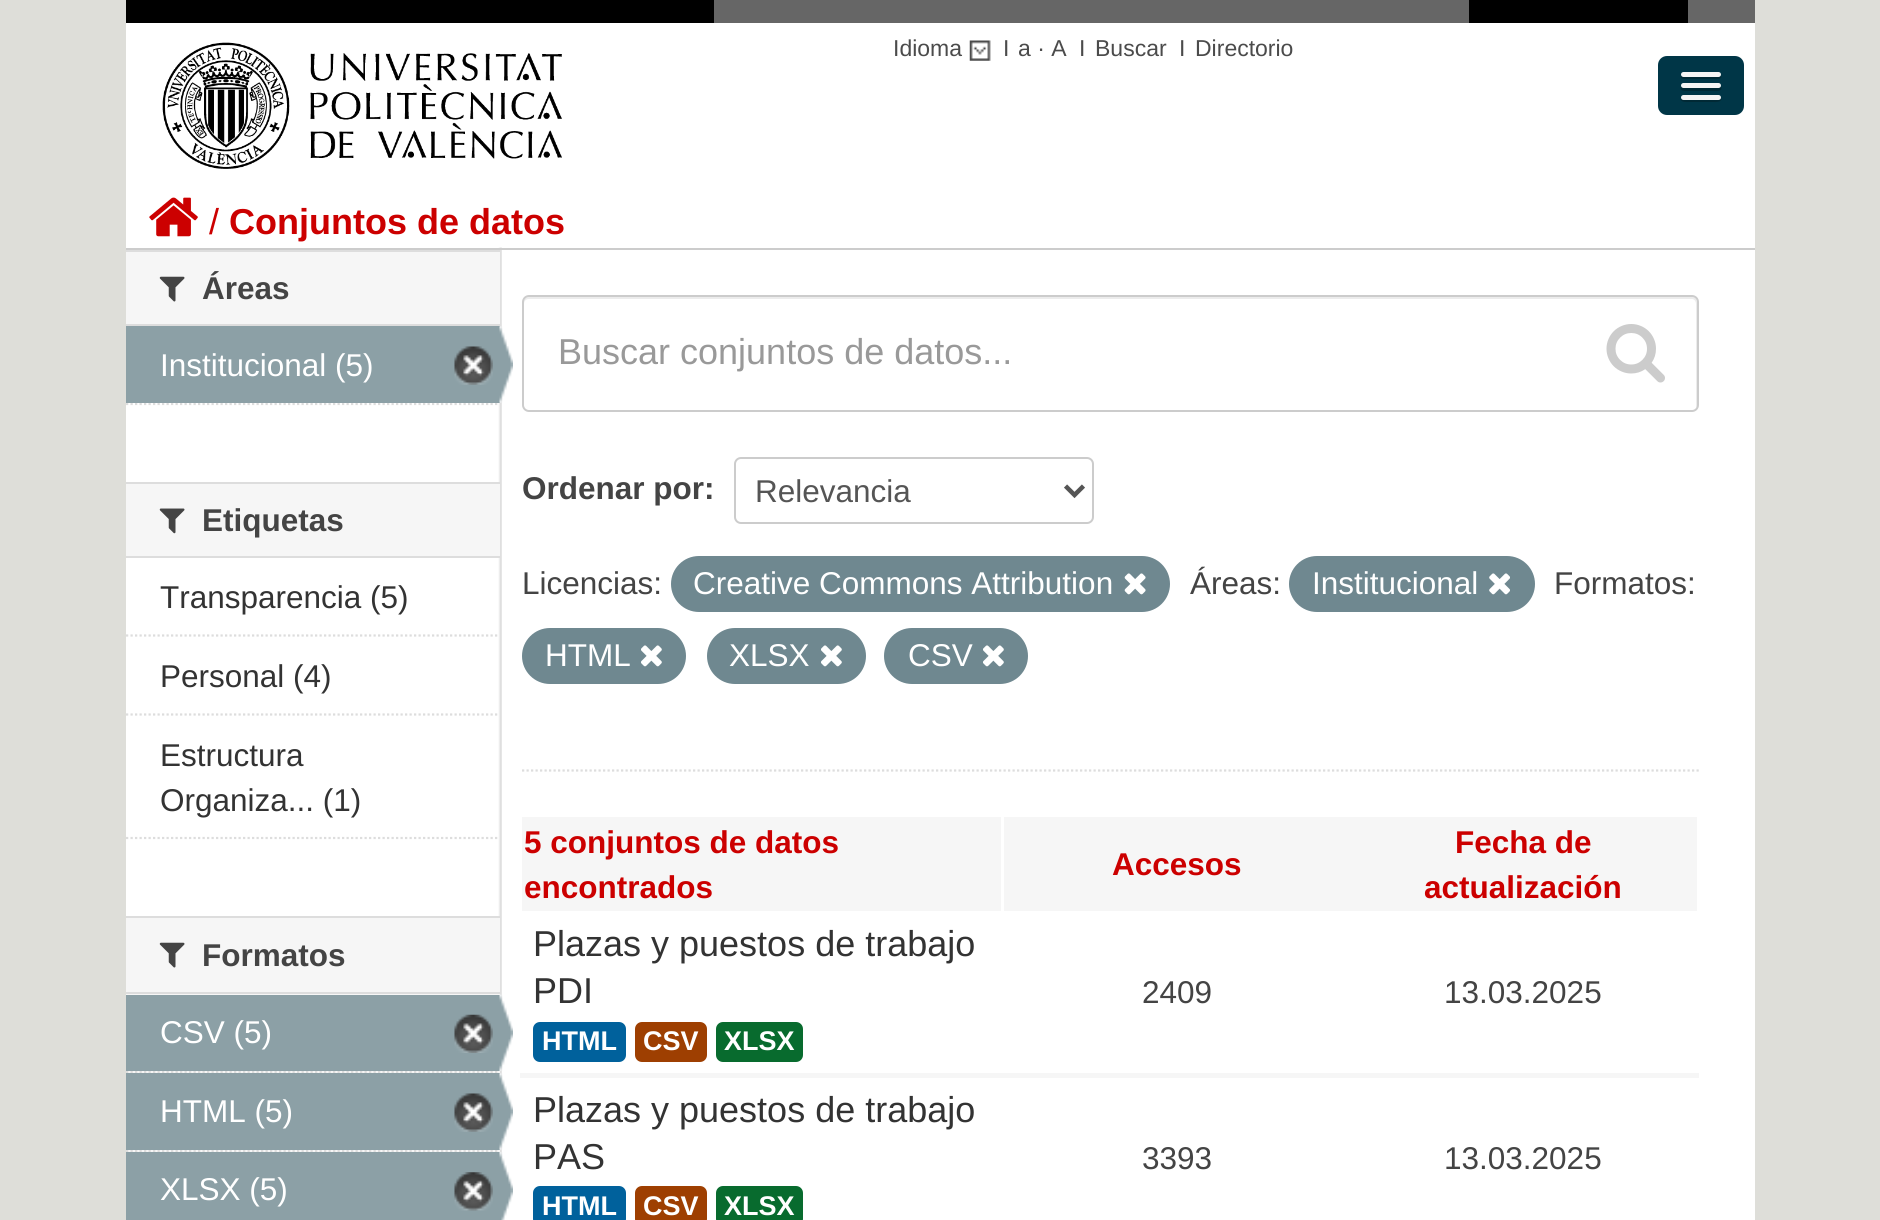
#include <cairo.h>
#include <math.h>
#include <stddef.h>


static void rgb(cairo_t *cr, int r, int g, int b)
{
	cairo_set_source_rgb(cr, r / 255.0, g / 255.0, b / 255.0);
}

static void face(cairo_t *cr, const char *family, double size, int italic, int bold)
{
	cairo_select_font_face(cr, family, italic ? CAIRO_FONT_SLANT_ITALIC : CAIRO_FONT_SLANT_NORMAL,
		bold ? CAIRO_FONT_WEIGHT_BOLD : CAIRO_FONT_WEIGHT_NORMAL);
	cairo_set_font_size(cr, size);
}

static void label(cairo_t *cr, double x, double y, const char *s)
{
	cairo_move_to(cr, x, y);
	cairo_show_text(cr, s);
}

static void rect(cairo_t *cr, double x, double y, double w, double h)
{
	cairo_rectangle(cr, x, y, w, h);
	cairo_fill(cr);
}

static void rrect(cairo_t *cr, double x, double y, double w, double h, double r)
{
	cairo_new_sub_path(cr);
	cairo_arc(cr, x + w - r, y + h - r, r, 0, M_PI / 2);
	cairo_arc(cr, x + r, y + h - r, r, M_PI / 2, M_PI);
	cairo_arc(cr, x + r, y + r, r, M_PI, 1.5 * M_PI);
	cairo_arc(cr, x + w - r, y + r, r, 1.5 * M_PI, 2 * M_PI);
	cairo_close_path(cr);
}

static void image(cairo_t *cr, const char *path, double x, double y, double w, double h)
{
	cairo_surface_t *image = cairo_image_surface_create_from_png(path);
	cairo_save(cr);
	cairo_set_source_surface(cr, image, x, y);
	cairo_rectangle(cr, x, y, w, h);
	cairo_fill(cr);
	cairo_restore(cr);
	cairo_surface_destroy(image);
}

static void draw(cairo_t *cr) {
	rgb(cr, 222, 222, 217);
	cairo_paint(cr);
	rgb(cr, 102, 102, 102);
	rect(cr, 714, 0, 1041, 23);
	rgb(cr, 0, 0, 0);
	rect(cr, 126, 0, 588, 23);
	rect(cr, 1469, 0, 219, 23);
	rgb(cr, 255, 255, 255);
	rect(cr, 126, 23, 1629, 1197);
	image(cr, "image0.png", 162, 42, 400, 127);
	face(cr, "Liberation Sans", 23, 0, 0);
	rgb(cr, 75, 75, 75);
	label(cr, 893, 56, "Idioma");
	image(cr, "image1.png", 969, 40, 22, 21);
	label(cr, 1003, 56, "I");
	label(cr, 1018, 56, "a · A");
	label(cr, 1079, 56, "I");
	label(cr, 1095, 56, "Buscar");
	label(cr, 1179, 56, "I");
	label(cr, 1195, 56, "Directorio");
	rgb(cr, 0, 54, 71);
	rrect(cr, 1658, 56, 86, 59, 9);
	cairo_fill(cr);
	rgb(cr, 0, 41, 53);
	cairo_new_path(cr);
	cairo_move_to(cr, 1681, 76);
	cairo_curve_to(cr, 1679, 80, 1688, 79, 1689, 79);
	cairo_line_to(cr, 1713, 79);
	cairo_curve_to(cr, 1714, 79, 1723, 80, 1721, 76);
	cairo_line_to(cr, 1719, 76);
	cairo_line_to(cr, 1683, 76);
	cairo_close_path(cr);
	cairo_fill(cr);
	rgb(cr, 245, 245, 245);
	rrect(cr, 1681, 72, 40, 5, 2.5);
	cairo_fill(cr);
	rgb(cr, 0, 41, 53);
	cairo_new_path(cr);
	cairo_move_to(cr, 1681, 87);
	cairo_curve_to(cr, 1678, 92, 1689, 91, 1689, 91);
	cairo_line_to(cr, 1713, 91);
	cairo_curve_to(cr, 1713, 91, 1724, 92, 1721, 87);
	cairo_curve_to(cr, 1719, 88, 1683, 88, 1681, 87);
	cairo_close_path(cr);
	cairo_fill(cr);
	rgb(cr, 245, 245, 245);
	rrect(cr, 1681, 83, 40, 5, 2.5);
	cairo_fill(cr);
	rgb(cr, 0, 41, 53);
	cairo_new_path(cr);
	cairo_move_to(cr, 1681, 98);
	cairo_curve_to(cr, 1679, 103, 1689, 102, 1689, 102);
	cairo_line_to(cr, 1713, 102);
	cairo_curve_to(cr, 1713, 102, 1723, 103, 1721, 98);
	cairo_curve_to(cr, 1719, 100, 1683, 100, 1681, 98);
	cairo_close_path(cr);
	cairo_fill(cr);
	rgb(cr, 245, 245, 245);
	rrect(cr, 1681, 95, 40, 5, 2.5);
	cairo_fill(cr);
	image(cr, "image2.png", 149, 197, 49, 40);
	face(cr, "Liberation Sans", 36, 0, 0);
	rgb(cr, 204, 0, 0);
	label(cr, 209, 234, "/");
	face(cr, "Liberation Sans", 36, 0, 1);
	label(cr, 229, 234, "Conjuntos de datos");
	image(cr, "image3.png", 498, 247, 4, 913);
	rgb(cr, 204, 204, 204);
	rect(cr, 126, 248, 1629, 2);
	rgb(cr, 246, 246, 246);
	rect(cr, 126, 252, 374, 72);
	rgb(cr, 221, 221, 221);
	rect(cr, 126, 250, 374, 2);
	rect(cr, 126, 324, 374, 2);
	image(cr, "image4.png", 159, 276, 26, 26);
	face(cr, "Liberation Sans", 31.5, 0, 1);
	rgb(cr, 68, 68, 68);
	label(cr, 202, 299, "Áreas");
	cairo_new_path(cr);
	cairo_move_to(cr, 126, 404);
	cairo_line_to(cr, 499.5, 404);
	rgb(cr, 221, 221, 221);
	cairo_set_line_width(cr, 2.2);
	cairo_set_dash(cr, (double[]){2.25, 2.25}, 2, 0);
	cairo_stroke(cr);
	rgb(cr, 140, 160, 166);
	rect(cr, 126, 326, 374, 77);
	face(cr, "Liberation Sans", 31.5, 0, 0);
	rgb(cr, 255, 255, 255);
	label(cr, 160, 376, "Institucional (5)");
	image(cr, "image5.png", 454, 346, 39, 39);
	image(cr, "image6.png", 499, 326, 14, 77);
	rgb(cr, 246, 246, 246);
	rect(cr, 126, 484, 374, 72);
	rgb(cr, 221, 221, 221);
	rect(cr, 126, 482, 374, 2);
	rect(cr, 126, 556, 374, 2);
	image(cr, "image7.png", 159, 508, 26, 26);
	face(cr, "Liberation Sans", 31.5, 0, 1);
	rgb(cr, 68, 68, 68);
	label(cr, 202, 531, "Etiquetas");
	cairo_new_path(cr);
	cairo_move_to(cr, 126, 635.5);
	cairo_line_to(cr, 499.5, 635.5);
	rgb(cr, 221, 221, 221);
	cairo_stroke(cr);
	face(cr, "Liberation Sans", 31.5, 0, 0);
	rgb(cr, 51, 51, 51);
	label(cr, 160, 608, "Transparencia (5)");
	cairo_new_path(cr);
	cairo_move_to(cr, 126, 714.5);
	cairo_line_to(cr, 499.5, 714.5);
	rgb(cr, 221, 221, 221);
	cairo_stroke(cr);
	rgb(cr, 51, 51, 51);
	label(cr, 160, 687, "Personal (4)");
	label(cr, 160, 766, "Estructura");
	label(cr, 160, 811, "Organiza... (1)");
	cairo_new_path(cr);
	cairo_move_to(cr, 126, 838);
	cairo_line_to(cr, 499.5, 838);
	rgb(cr, 221, 221, 221);
	cairo_stroke(cr);
	rgb(cr, 246, 246, 246);
	rect(cr, 126, 918, 374, 77);
	rgb(cr, 221, 221, 221);
	rect(cr, 126, 916, 374, 2);
	rect(cr, 126, 992, 374, 2);
	image(cr, "image4.png", 159, 942, 26, 26);
	face(cr, "Liberation Sans", 31.5, 0, 1);
	rgb(cr, 68, 68, 68);
	label(cr, 202, 966, "Formatos");
	rgb(cr, 246, 246, 246);
	rect(cr, 128, 1071, 372, 2);
	cairo_new_path(cr);
	cairo_move_to(cr, 126, 1072);
	cairo_line_to(cr, 499.5, 1072);
	rgb(cr, 221, 221, 221);
	cairo_stroke(cr);
	rgb(cr, 140, 160, 166);
	rect(cr, 126, 995, 374, 76);
	face(cr, "Liberation Sans", 31.5, 0, 0);
	rgb(cr, 255, 255, 255);
	label(cr, 160, 1043, "CSV (5)");
	image(cr, "image8.png", 454, 1014, 39, 39);
	image(cr, "image9.png", 499, 994, 14, 77);
	rgb(cr, 246, 246, 246);
	rect(cr, 128, 1150, 372, 2);
	cairo_new_path(cr);
	cairo_move_to(cr, 126, 1151);
	cairo_line_to(cr, 499.5, 1151);
	rgb(cr, 221, 221, 221);
	cairo_stroke(cr);
	rgb(cr, 140, 160, 166);
	rect(cr, 126, 1073, 374, 77);
	rgb(cr, 255, 255, 255);
	label(cr, 160, 1122, "HTML (5)");
	image(cr, "image5.png", 454, 1093, 39, 39);
	image(cr, "image6.png", 499, 1073, 14, 77);
	rgb(cr, 140, 160, 166);
	rect(cr, 126, 1152, 374, 68);
	rgb(cr, 255, 255, 255);
	label(cr, 160, 1200, "XLSX (5)");
	image(cr, "image10.png", 454, 1172, 39, 39);
	image(cr, "image11.png", 499, 1152, 14, 68);
	cairo_new_path(cr);
	cairo_move_to(cr, 522, 770.5);
	cairo_line_to(cr, 1699, 770.5);
	rgb(cr, 221, 221, 221);
	cairo_stroke(cr);
	rgb(cr, 236, 236, 236);
	cairo_new_path(cr);
	cairo_move_to(cr, 529, 299);
	cairo_line_to(cr, 1692, 299);
	cairo_curve_to(cr, 1694, 299, 1696, 301, 1696, 304);
	cairo_line_to(cr, 1696, 408);
	cairo_curve_to(cr, 1697, 407, 1697, 406, 1697, 405);
	cairo_line_to(cr, 1697, 302);
	cairo_curve_to(cr, 1697, 299, 1695, 297, 1692, 297);
	cairo_line_to(cr, 529, 297);
	cairo_curve_to(cr, 526, 297, 524, 299, 524, 302);
	cairo_line_to(cr, 524, 304);
	cairo_curve_to(cr, 524, 301, 526, 299, 529, 299);
	cairo_close_path(cr);
	cairo_fill(cr);
	rrect(cr, 523, 296, 1175, 115, 6);
	rgb(cr, 204, 204, 204);
	cairo_set_line_width(cr, 2);
	cairo_set_dash(cr, NULL, 0, 0);
	cairo_stroke(cr);
	face(cr, "Liberation Sans", 36, 0, 0);
	rgb(cr, 153, 153, 153);
	label(cr, 558, 364, "Buscar conjuntos de datos...");
	image(cr, "image12.png", 1606, 324, 59, 59);
	face(cr, "Liberation Sans", 31.5, 0, 1);
	rgb(cr, 68, 68, 68);
	label(cr, 522, 499, "Ordenar por:");
	rrect(cr, 735, 458, 358, 65, 6);
	rgb(cr, 204, 204, 204);
	cairo_stroke(cr);
	cairo_new_path(cr);
	cairo_move_to(cr, 1065.5, 486);
	cairo_line_to(cr, 1074.5, 495);
	cairo_line_to(cr, 1083.5, 486);
	rgb(cr, 85, 85, 85);
	cairo_set_line_width(cr, 4.5);
	cairo_stroke(cr);
	face(cr, "Liberation Sans", 31.5, 0, 0);
	label(cr, 755, 502, "Relevancia");
	rgb(cr, 68, 68, 68);
	label(cr, 522, 594, "Licencias:");
	rgb(cr, 111, 136, 144);
	rrect(cr, 671, 556, 499, 56, 28);
	cairo_fill(cr);
	rgb(cr, 255, 255, 255);
	label(cr, 693, 594, "Creative Commons Attribution");
	image(cr, "image13.png", 1124, 573, 22, 22);
	rgb(cr, 68, 68, 68);
	label(cr, 1190, 594, "Áreas:");
	rgb(cr, 111, 136, 144);
	rrect(cr, 1289, 556, 246, 56, 28);
	cairo_fill(cr);
	rgb(cr, 255, 255, 255);
	label(cr, 1312, 594, "Institucional");
	image(cr, "image14.png", 1489, 573, 21, 22);
	rgb(cr, 68, 68, 68);
	label(cr, 1554, 594, "Formatos:");
	rgb(cr, 111, 136, 144);
	rrect(cr, 522, 628, 164, 56, 28);
	cairo_fill(cr);
	rgb(cr, 255, 255, 255);
	label(cr, 545, 666, "HTML");
	image(cr, "image15.png", 641, 645, 21, 22);
	rgb(cr, 111, 136, 144);
	rrect(cr, 707, 628, 159, 56, 28);
	cairo_fill(cr);
	rgb(cr, 255, 255, 255);
	label(cr, 729, 666, "XLSX");
	image(cr, "image15.png", 821, 645, 21, 22);
	rgb(cr, 111, 136, 144);
	rrect(cr, 884, 628, 144, 56, 28);
	cairo_fill(cr);
	rgb(cr, 255, 255, 255);
	label(cr, 908, 666, "CSV");
	image(cr, "image15.png", 983, 645, 21, 22);
	rgb(cr, 246, 246, 246);
	rect(cr, 522, 817, 479, 94);
	face(cr, "Liberation Sans", 31.5, 0, 1);
	rgb(cr, 204, 0, 0);
	label(cr, 524, 853, "5 conjuntos de datos");
	label(cr, 524, 898, "encontrados");
	rgb(cr, 246, 246, 246);
	rect(cr, 1004, 817, 693, 94);
	rgb(cr, 204, 0, 0);
	label(cr, 1112, 875, "Accesos");
	label(cr, 1455, 853, "Fecha de");
	label(cr, 1424, 898, "actualización");
	face(cr, "Liberation Sans", 36, 0, 0);
	rgb(cr, 51, 51, 51);
	label(cr, 533, 956, "Plazas y puestos de trabajo");
	label(cr, 533, 1003, "PDI");
	rgb(cr, 0, 97, 156);
	rrect(cr, 533, 1022, 93, 40, 7);
	cairo_fill(cr);
	face(cr, "Liberation Sans", 27, 0, 1);
	rgb(cr, 255, 255, 255);
	label(cr, 542, 1050, "HTML");
	rgb(cr, 158, 63, 1);
	rrect(cr, 635, 1022, 72, 40, 7);
	cairo_fill(cr);
	rgb(cr, 255, 255, 255);
	label(cr, 643, 1050, "CSV");
	rgb(cr, 8, 107, 46);
	rrect(cr, 716, 1022, 87, 40, 7);
	cairo_fill(cr);
	rgb(cr, 255, 255, 255);
	label(cr, 724, 1050, "XLSX");
	face(cr, "Liberation Sans", 31.5, 0, 0);
	rgb(cr, 68, 68, 68);
	label(cr, 1142, 1003, "2409");
	rgb(cr, 246, 246, 246);
	rect(cr, 520, 1073, 1179, 5);
	rgb(cr, 68, 68, 68);
	label(cr, 1444, 1003, "13.03.2025");
	face(cr, "Liberation Sans", 36, 0, 0);
	rgb(cr, 51, 51, 51);
	label(cr, 533, 1122, "Plazas y puestos de trabajo");
	label(cr, 533, 1169, "PAS");
	rgb(cr, 0, 97, 156);
	rrect(cr, 533, 1186, 93, 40, 7);
	cairo_fill(cr);
	face(cr, "Liberation Sans", 27, 0, 1);
	rgb(cr, 255, 255, 255);
	label(cr, 542, 1215, "HTML");
	rgb(cr, 158, 63, 1);
	rrect(cr, 635, 1186, 72, 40, 7);
	cairo_fill(cr);
	rgb(cr, 255, 255, 255);
	label(cr, 643, 1215, "CSV");
	rgb(cr, 8, 107, 46);
	rrect(cr, 716, 1186, 87, 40, 7);
	cairo_fill(cr);
	rgb(cr, 255, 255, 255);
	label(cr, 724, 1215, "XLSX");
	face(cr, "Liberation Sans", 31.5, 0, 0);
	rgb(cr, 68, 68, 68);
	label(cr, 1142, 1169, "3393");
	label(cr, 1444, 1169, "13.03.2025");
}

int main(void) {
	cairo_surface_t *surface = cairo_image_surface_create(CAIRO_FORMAT_RGB24, 1880, 1220);
	cairo_t *cr = cairo_create(surface);
	cairo_font_options_t *options = cairo_font_options_create();
	cairo_font_options_set_hint_metrics(options, CAIRO_HINT_METRICS_OFF);
	cairo_font_options_set_hint_style(options, CAIRO_HINT_STYLE_NONE);
	cairo_set_font_options(cr, options);
	cairo_set_miter_limit(cr, 4);
	draw(cr);
	cairo_surface_write_to_png(surface, "render.png");
	cairo_font_options_destroy(options);
	cairo_destroy(cr);
	cairo_surface_destroy(surface);
	return 0;
}
